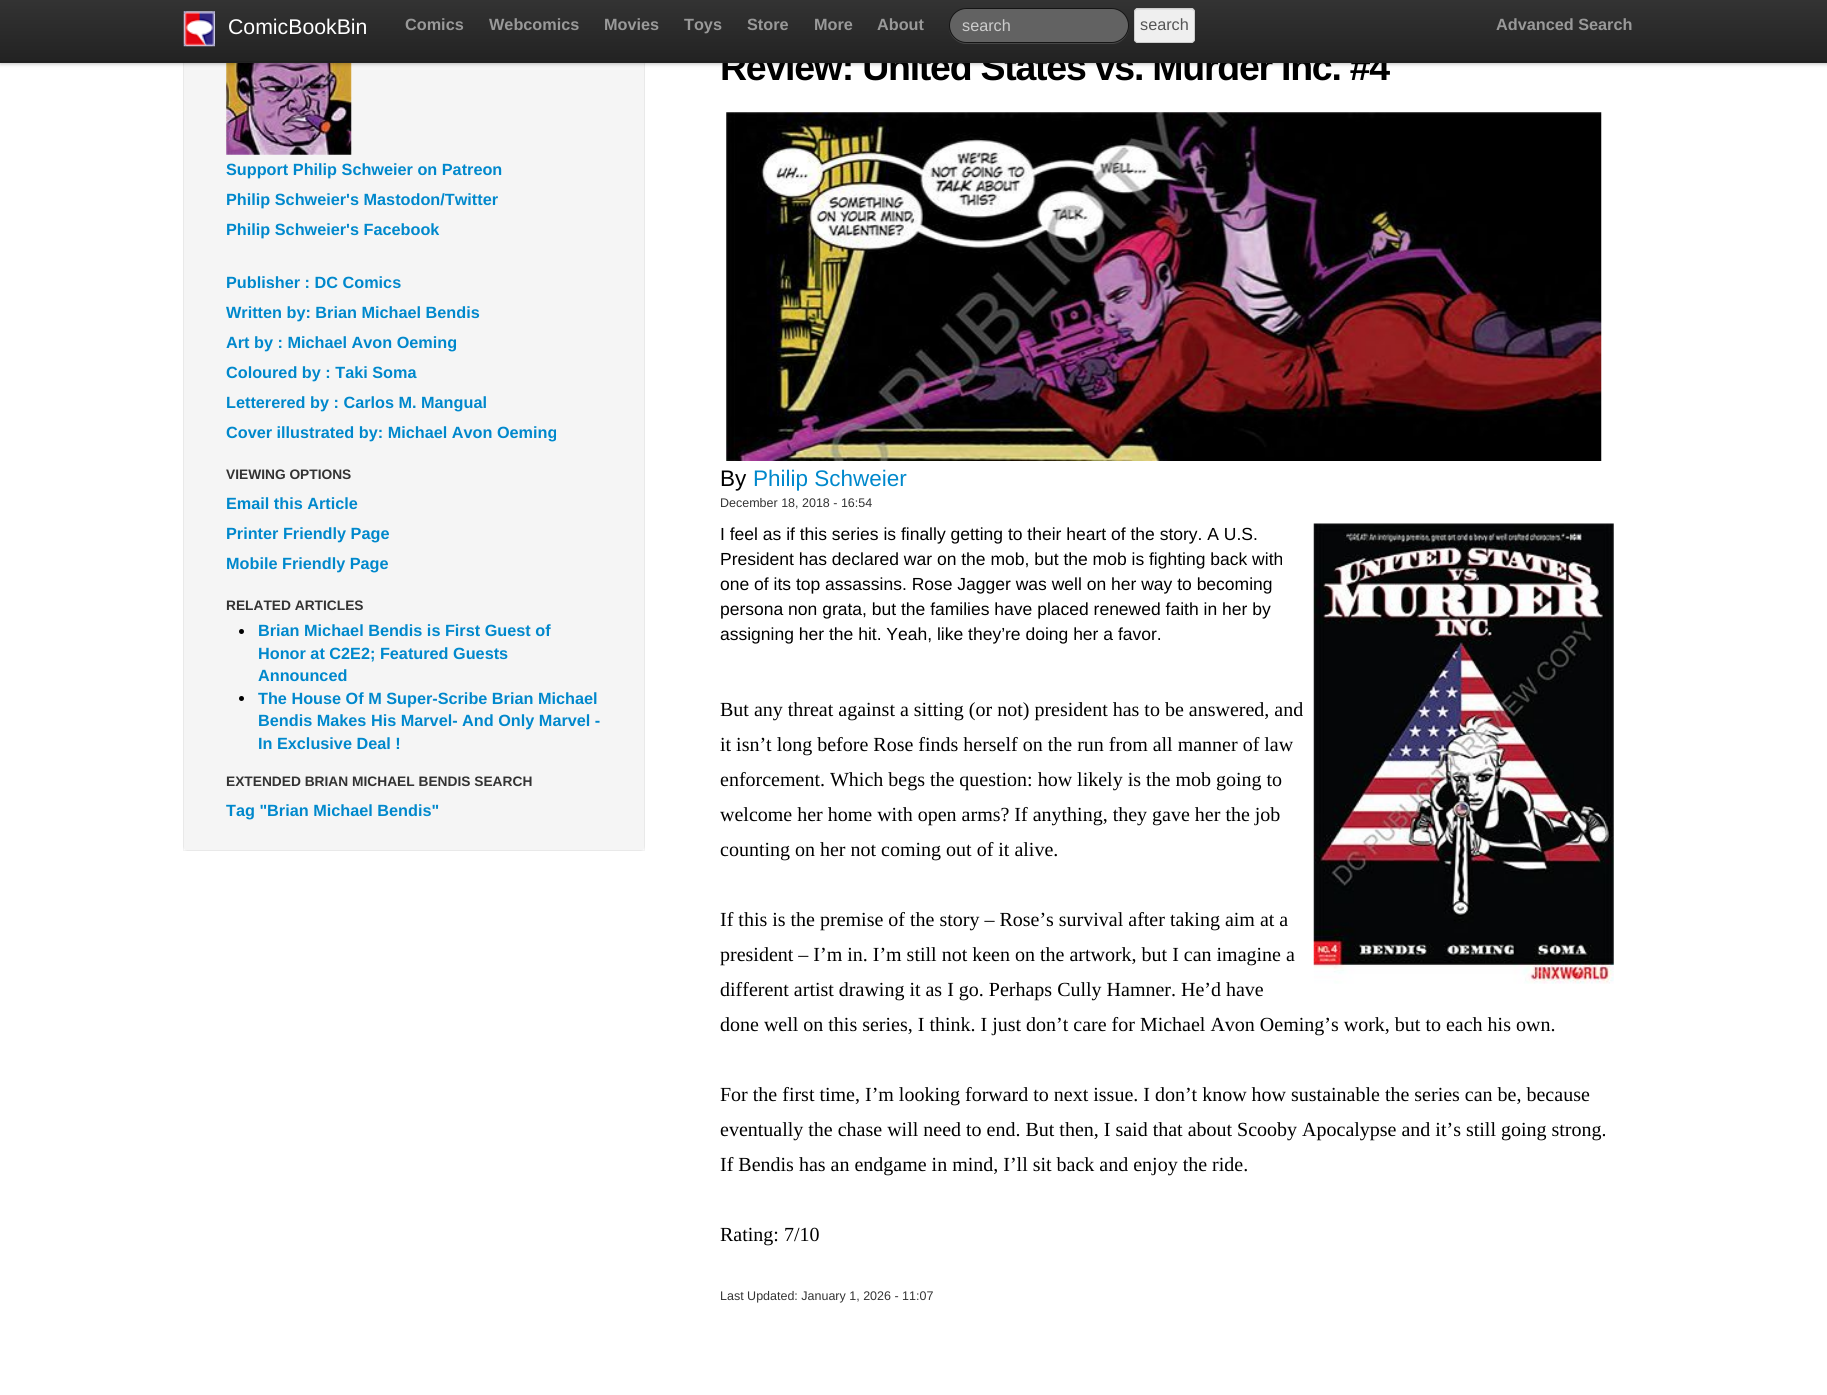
#include <cairo.h>
#include <math.h>
#include <stddef.h>


static void rgb(cairo_t *cr, int r, int g, int b)
{
	cairo_set_source_rgb(cr, r / 255.0, g / 255.0, b / 255.0);
}

static void face(cairo_t *cr, const char *family, double size, int italic, int bold)
{
	cairo_select_font_face(cr, family, italic ? CAIRO_FONT_SLANT_ITALIC : CAIRO_FONT_SLANT_NORMAL,
		bold ? CAIRO_FONT_WEIGHT_BOLD : CAIRO_FONT_WEIGHT_NORMAL);
	cairo_set_font_size(cr, size);
}

static void label(cairo_t *cr, double x, double y, const char *s)
{
	cairo_move_to(cr, x, y);
	cairo_show_text(cr, s);
}

static void tracked(cairo_t *cr, double x, double y, const char *s, double letter, double word)
{
	cairo_move_to(cr, x, y);
	while (*s) {
		char ch[5] = {0};
		int n = 0;
		do ch[n++] = *s++; while ((*s & 0xC0) == 0x80);
		cairo_show_text(cr, ch);
		cairo_rel_move_to(cr, letter + word * (*ch == ' '), 0);
	}
}

static void rect(cairo_t *cr, double x, double y, double w, double h)
{
	cairo_rectangle(cr, x, y, w, h);
	cairo_fill(cr);
}

static void rrect(cairo_t *cr, double x, double y, double w, double h, double r)
{
	cairo_new_sub_path(cr);
	cairo_arc(cr, x + w - r, y + h - r, r, 0, M_PI / 2);
	cairo_arc(cr, x + r, y + h - r, r, M_PI / 2, M_PI);
	cairo_arc(cr, x + r, y + r, r, M_PI, 1.5 * M_PI);
	cairo_arc(cr, x + w - r, y + r, r, 1.5 * M_PI, 2 * M_PI);
	cairo_close_path(cr);
}

static void soft_shadow(cairo_t *cr, double x, double y, double w, double h, double r, double blur, double alpha)
{
	cairo_push_group_with_content(cr, CAIRO_CONTENT_ALPHA);
	cairo_set_operator(cr, CAIRO_OPERATOR_SOURCE);
	for (int i = 15; i >= -15 && fmin(w, h) + blur * i / 3 > 0; i -= 2) {
		double e = blur * i / 6;
		cairo_set_source_rgba(cr, 0, 0, 0, alpha * erfc((i - 1) / 8.5) / 2);
		rrect(cr, x - e, y - e, w + 2 * e, h + 2 * e, fmax(0, fmin(r + e + blur * .6, fmin(w, h) / 2 + e)));
		cairo_fill(cr);
	}
	cairo_pattern_t *soft = cairo_pop_group(cr);
	cairo_mask(cr, soft);
	cairo_pattern_destroy(soft);
}

static void image(cairo_t *cr, const char *path, double x, double y, double w, double h)
{
	cairo_surface_t *image = cairo_image_surface_create_from_png(path);
	cairo_save(cr);
	cairo_set_source_surface(cr, image, x, y);
	cairo_rectangle(cr, x, y, w, h);
	cairo_fill(cr);
	cairo_restore(cr);
	cairo_surface_destroy(image);
}

static void draw(cairo_t *cr) {
	cairo_pattern_t *gradient;
	rgb(cr, 255, 255, 255);
	cairo_paint(cr);
	rgb(cr, 245, 245, 245);
	rrect(cr, 183, -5, 462, 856, 5);
	cairo_fill(cr);
	cairo_rectangle(cr, 183.5, -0.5, 461, 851);
	cairo_set_source_rgba(cr, 0, 0, 0, 0.05);
	cairo_set_line_width(cr, 1);
	cairo_stroke(cr);
	image(cr, "image1.png", 226, 63, 126, 92);
	rgb(cr, 0, 0, 0);
	soft_shadow(cr, 0, 1, 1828, 63, 0, 2, 0.25);
	face(cr, "Liberation Sans", 37.5, 0, 1);
	rgb(cr, 0, 0, 0);
	tracked(cr, 720, 80, "Review: United States vs. Murder Inc. #4", -1.25, 0);
	gradient = cairo_pattern_create_linear(914, 0, 914, 63);
	cairo_pattern_add_color_stop_rgba(gradient, 0, 0.2, 0.2, 0.2, 1);
	cairo_pattern_add_color_stop_rgba(gradient, 1, 0.133, 0.133, 0.133, 1);
	cairo_set_source(cr, gradient);
	cairo_pattern_destroy(gradient);
	rect(cr, 0, 0, 1827, 63);
	rgb(cr, 31, 31, 31);
	rect(cr, 0, 61, 1827, 1);
	image(cr, "image0.png", 183, 11, 32, 36);
	face(cr, "Liberation Sans", 21.25, 0, 0);
	rgb(cr, 255, 255, 255);
	label(cr, 228, 34, "ComicBookBin");
	face(cr, "Liberation Sans", 16.25, 0, 1);
	rgb(cr, 153, 153, 153);
	label(cr, 405, 30, "Comics");
	label(cr, 489, 30, "Webcomics");
	label(cr, 604, 30, "Movies");
	label(cr, 684, 30, "Toys");
	label(cr, 747, 30, "Store");
	label(cr, 814, 30, "More");
	label(cr, 877, 30, "About");
	cairo_set_source_rgba(cr, 1, 1, 1, 0.15);
	cairo_new_path(cr);
	cairo_move_to(cr, 949, 29);
	cairo_curve_to(cr, 950, 37, 958, 44, 966, 44);
	cairo_line_to(cr, 1112, 44);
	cairo_curve_to(cr, 1121, 44, 1129, 36, 1129, 26);
	cairo_line_to(cr, 1129, 23);
	cairo_line_to(cr, 1129, 25);
	cairo_curve_to(cr, 1129, 35, 1121, 42, 1111, 42);
	cairo_line_to(cr, 966, 42);
	cairo_curve_to(cr, 958, 42, 951, 37, 949, 29);
	cairo_close_path(cr);
	cairo_fill(cr);
	rgb(cr, 98, 98, 98);
	rrect(cr, 949.5, 8.5, 179, 34, 17);
	cairo_fill_preserve(cr);
	rgb(cr, 21, 21, 21);
	cairo_stroke(cr);
	face(cr, "Liberation Sans", 16.25, 0, 0);
	rgb(cr, 204, 204, 204);
	label(cr, 962, 31, "search");
	rgb(cr, 239, 239, 239);
	rrect(cr, 1134, 8, 61, 35, 4);
	cairo_fill(cr);
	rgb(cr, 221, 221, 221);
	cairo_new_path(cr);
	cairo_move_to(cr, 1138, 10);
	cairo_line_to(cr, 1191, 10);
	cairo_curve_to(cr, 1193, 10, 1194, 11, 1194, 12);
	cairo_curve_to(cr, 1194, 7, 1185, 9, 1182, 9);
	cairo_line_to(cr, 1146, 9);
	cairo_curve_to(cr, 1144, 9, 1135, 7, 1135, 12);
	cairo_curve_to(cr, 1135, 11, 1136, 10, 1138, 10);
	cairo_close_path(cr);
	cairo_fill(cr);
	rrect(cr, 1134.5, 8.5, 60, 34, 3.5);
	rgb(cr, 204, 204, 204);
	cairo_stroke(cr);
	rgb(cr, 85, 85, 85);
	label(cr, 1140, 30, "search");
	face(cr, "Liberation Sans", 16.25, 0, 1);
	rgb(cr, 153, 153, 153);
	label(cr, 1496, 30, "Advanced Search");
	rgb(cr, 0, 136, 204);
	label(cr, 226, 175, "Support Philip Schweier on Patreon");
	label(cr, 226, 205, "Philip Schweier's Mastodon/Twitter");
	label(cr, 226, 235, "Philip Schweier's Facebook");
	label(cr, 226, 288, "Publisher : DC Comics");
	label(cr, 226, 318, "Written by: Brian Michael Bendis");
	label(cr, 226, 348, "Art by : Michael Avon Oeming");
	label(cr, 226, 378, "Coloured by : Taki Soma");
	label(cr, 226, 408, "Letterered by : Carlos M. Mangual");
	label(cr, 226, 438, "Cover illustrated by: Michael Avon Oeming");
	face(cr, "Liberation Sans", 13.75, 0, 1);
	rgb(cr, 51, 51, 51);
	label(cr, 226, 479, "VIEWING OPTIONS");
	face(cr, "Liberation Sans", 16.25, 0, 1);
	rgb(cr, 0, 136, 204);
	label(cr, 226, 509, "Email this Article");
	label(cr, 226, 539, "Printer Friendly Page");
	label(cr, 226, 569, "Mobile Friendly Page");
	face(cr, "Liberation Sans", 13.75, 0, 1);
	rgb(cr, 51, 51, 51);
	label(cr, 226, 610, "RELATED ARTICLES");
	rgb(cr, 0, 0, 0);
	cairo_new_path(cr);
	cairo_arc(cr, 241.5, 631.5, 2.5, 0, 2 * M_PI);
	cairo_fill(cr);
	face(cr, "Liberation Sans", 16.25, 0, 1);
	rgb(cr, 0, 136, 204);
	label(cr, 258, 636, "Brian Michael Bendis is First Guest of");
	label(cr, 258, 659, "Honor at C2E2; Featured Guests");
	label(cr, 258, 681, "Announced");
	rgb(cr, 0, 0, 0);
	cairo_new_path(cr);
	cairo_arc(cr, 241.5, 698.5, 2.5, 0, 2 * M_PI);
	cairo_fill(cr);
	rgb(cr, 0, 136, 204);
	label(cr, 258, 704, "The House Of M Super-Scribe Brian Michael");
	label(cr, 258, 726, "Bendis Makes His Marvel- And Only Marvel -");
	label(cr, 258, 749, "In Exclusive Deal !");
	face(cr, "Liberation Sans", 13.75, 0, 1);
	rgb(cr, 51, 51, 51);
	label(cr, 226, 786, "EXTENDED BRIAN MICHAEL BENDIS SEARCH");
	face(cr, "Liberation Sans", 16.25, 0, 1);
	rgb(cr, 0, 136, 204);
	label(cr, 226, 816, "Tag \"Brian Michael Bendis\"");
	image(cr, "image2.png", 726, 112, 876, 349);
	face(cr, "Liberation Sans", 22.5, 0, 0);
	rgb(cr, 0, 0, 0);
	label(cr, 720, 486, "By");
	rgb(cr, 0, 136, 204);
	label(cr, 753, 486, "Philip Schweier");
	face(cr, "Liberation Sans", 12.5, 0, 0);
	rgb(cr, 51, 51, 51);
	label(cr, 720, 507, "December 18, 2018 - 16:54");
	face(cr, "Liberation Sans", 17.5, 0, 0);
	rgb(cr, 0, 0, 0);
	label(cr, 720, 540, "I feel as if this series is finally getting to their heart of the story. A U.S.");
	image(cr, "image3.png", 1313, 523, 301, 461);
	label(cr, 720, 565, "President has declared war on the mob, but the mob is fighting back with");
	label(cr, 720, 590, "one of its top assassins. Rose Jagger was well on her way to becoming");
	label(cr, 720, 615, "persona non grata, but the families have placed renewed faith in her by");
	label(cr, 720, 640, "assigning her the hit. Yeah, like they’re doing her a favor.");
	face(cr, "Liberation Serif", 20, 0, 0);
	label(cr, 720, 716, "But any threat against a sitting (or not) president has to be answered, and");
	label(cr, 720, 751, "it isn’t long before Rose finds herself on the run from all manner of law");
	label(cr, 720, 786, "enforcement. Which begs the question: how likely is the mob going to");
	label(cr, 720, 821, "welcome her home with open arms? If anything, they gave her the job");
	label(cr, 720, 856, "counting on her not coming out of it alive.");
	label(cr, 720, 926, "If this is the premise of the story – Rose’s survival after taking aim at a");
	label(cr, 720, 961, "president – I’m in. I’m still not keen on the artwork, but I can imagine a");
	label(cr, 720, 996, "different artist drawing it as I go. Perhaps Cully Hamner. He’d have");
	label(cr, 720, 1031, "done well on this series, I think. I just don’t care for Michael Avon Oeming’s work, but to each his own.");
	label(cr, 720, 1101, "For the first time, I’m looking forward to next issue. I don’t know how sustainable the series can be, because");
	label(cr, 720, 1136, "eventually the chase will need to end. But then, I said that about Scooby Apocalypse and it’s still going strong.");
	label(cr, 720, 1171, "If Bendis has an endgame in mind, I’ll sit back and enjoy the ride.");
	label(cr, 720, 1241, "Rating: 7/10");
	face(cr, "Liberation Sans", 12.5, 0, 0);
	rgb(cr, 51, 51, 51);
	label(cr, 720, 1300, "Last Updated: January 1, 2026 - 11:07");
}

int main(void) {
	cairo_surface_t *surface = cairo_image_surface_create(CAIRO_FORMAT_RGB24, 1827, 1395);
	cairo_t *cr = cairo_create(surface);
	cairo_font_options_t *options = cairo_font_options_create();
	cairo_font_options_set_hint_metrics(options, CAIRO_HINT_METRICS_OFF);
	cairo_font_options_set_hint_style(options, CAIRO_HINT_STYLE_NONE);
	cairo_set_font_options(cr, options);
	cairo_set_miter_limit(cr, 4);
	draw(cr);
	cairo_surface_write_to_png(surface, "render.png");
	cairo_font_options_destroy(options);
	cairo_destroy(cr);
	cairo_surface_destroy(surface);
	return 0;
}
